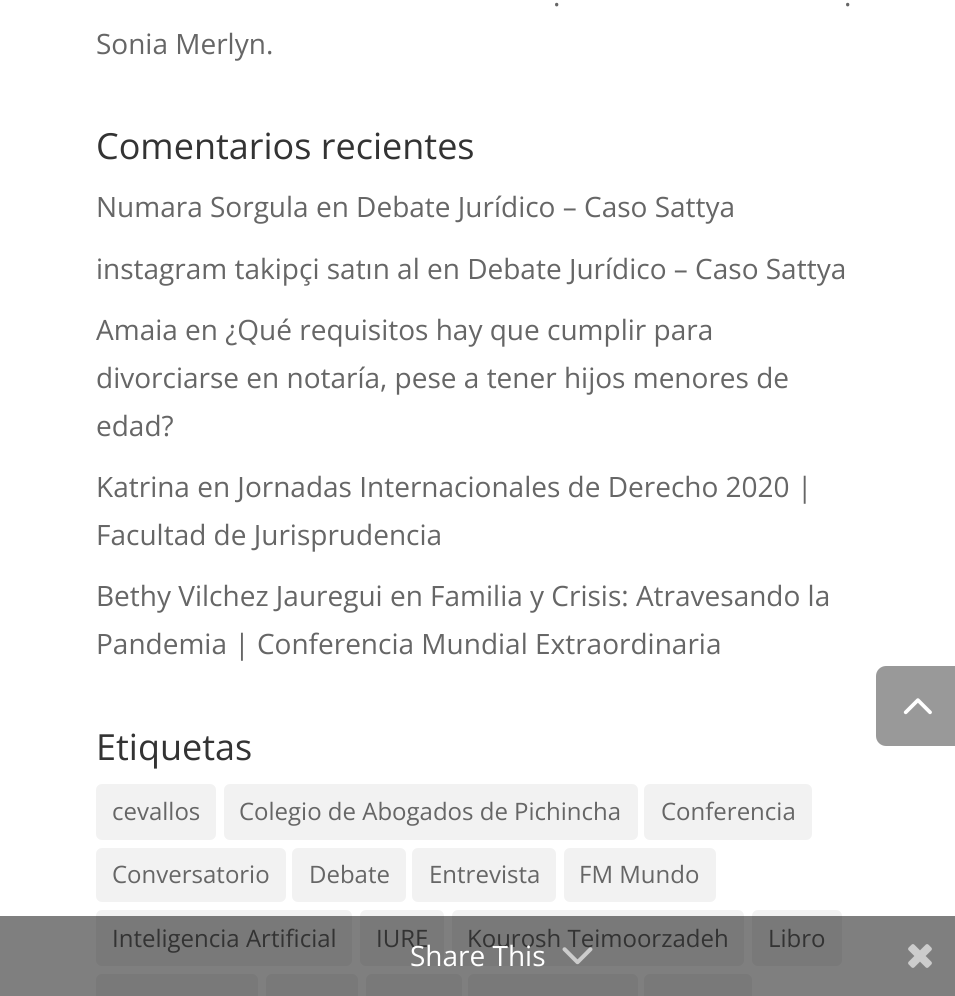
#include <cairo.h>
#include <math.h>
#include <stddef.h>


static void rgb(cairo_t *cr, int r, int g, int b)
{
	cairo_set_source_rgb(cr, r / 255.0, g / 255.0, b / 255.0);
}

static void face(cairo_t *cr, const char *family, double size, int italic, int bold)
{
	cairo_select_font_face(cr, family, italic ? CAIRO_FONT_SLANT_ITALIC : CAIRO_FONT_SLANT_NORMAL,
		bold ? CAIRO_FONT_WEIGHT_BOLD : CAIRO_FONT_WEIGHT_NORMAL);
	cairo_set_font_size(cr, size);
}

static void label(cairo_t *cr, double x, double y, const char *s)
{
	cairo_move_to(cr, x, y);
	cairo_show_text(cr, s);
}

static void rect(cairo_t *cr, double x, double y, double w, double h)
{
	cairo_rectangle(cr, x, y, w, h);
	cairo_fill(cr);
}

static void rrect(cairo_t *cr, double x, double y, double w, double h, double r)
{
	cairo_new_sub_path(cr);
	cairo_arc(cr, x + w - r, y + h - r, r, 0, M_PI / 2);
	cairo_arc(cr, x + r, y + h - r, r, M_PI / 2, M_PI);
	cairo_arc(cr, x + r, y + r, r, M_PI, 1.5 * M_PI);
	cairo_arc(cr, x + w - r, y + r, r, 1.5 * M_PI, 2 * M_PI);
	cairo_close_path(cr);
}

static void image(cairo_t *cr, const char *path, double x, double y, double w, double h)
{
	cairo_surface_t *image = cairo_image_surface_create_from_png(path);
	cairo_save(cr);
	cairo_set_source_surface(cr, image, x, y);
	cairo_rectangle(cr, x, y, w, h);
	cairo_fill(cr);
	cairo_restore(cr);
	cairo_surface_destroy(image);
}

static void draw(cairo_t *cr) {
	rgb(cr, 255, 255, 255);
	cairo_paint(cr);
	face(cr, "Open Sans", 28, 0, 0);
	rgb(cr, 102, 102, 102);
	label(cr, 553, 6, ".");
	label(cr, 844, 6, ".");
	label(cr, 96, 54, "Sonia Merlyn.");
	face(cr, "Open Sans", 36, 0, 0);
	rgb(cr, 51, 51, 51);
	label(cr, 96, 159, "Comentarios recientes");
	face(cr, "Open Sans", 28, 0, 0);
	rgb(cr, 102, 102, 102);
	label(cr, 96, 217, "Numara Sorgula en Debate Jurídico – Caso Sattya");
	label(cr, 96, 279, "instagram takipçi satın al en Debate Jurídico – Caso Sattya");
	label(cr, 96, 340, "Amaia en ¿Qué requisitos hay que cumplir para");
	label(cr, 96, 388, "divorciarse en notaría, pese a tener hijos menores de");
	label(cr, 96, 436, "edad?");
	label(cr, 96, 497, "Katrina en Jornadas Internacionales de Derecho 2020 |");
	label(cr, 96, 545, "Facultad de Jurisprudencia");
	label(cr, 96, 606, "Bethy Vilchez Jauregui en Familia y Crisis: Atravesando la");
	label(cr, 96, 654, "Pandemia | Conferencia Mundial Extraordinaria");
	face(cr, "Open Sans", 36, 0, 0);
	rgb(cr, 51, 51, 51);
	label(cr, 96, 760, "Etiquetas");
	rgb(cr, 242, 242, 242);
	rrect(cr, 96, 784, 120, 56, 6);
	cairo_fill(cr);
	face(cr, "Open Sans", 24, 0, 0);
	rgb(cr, 102, 102, 102);
	label(cr, 112, 820, "cevallos");
	rgb(cr, 242, 242, 242);
	rrect(cr, 224, 784, 414, 56, 6);
	cairo_fill(cr);
	rgb(cr, 102, 102, 102);
	label(cr, 239, 820, "Colegio de Abogados de Pichincha");
	rgb(cr, 242, 242, 242);
	rrect(cr, 644, 784, 168, 56, 6);
	cairo_fill(cr);
	rgb(cr, 102, 102, 102);
	label(cr, 661, 820, "Conferencia");
	rgb(cr, 242, 242, 242);
	rrect(cr, 96, 848, 190, 54, 6);
	cairo_fill(cr);
	rgb(cr, 102, 102, 102);
	label(cr, 112, 883, "Conversatorio");
	rgb(cr, 242, 242, 242);
	rrect(cr, 292, 848, 114, 54, 6);
	cairo_fill(cr);
	rgb(cr, 102, 102, 102);
	label(cr, 309, 883, "Debate");
	rgb(cr, 242, 242, 242);
	rrect(cr, 412, 848, 144, 54, 6);
	cairo_fill(cr);
	rgb(cr, 102, 102, 102);
	label(cr, 429, 883, "Entrevista");
	rgb(cr, 242, 242, 242);
	rrect(cr, 564, 848, 152, 54, 6);
	cairo_fill(cr);
	rgb(cr, 102, 102, 102);
	label(cr, 579, 883, "FM Mundo");
	rgb(cr, 242, 242, 242);
	rrect(cr, 96, 910, 256, 56, 6);
	cairo_fill(cr);
	rgb(cr, 102, 102, 102);
	label(cr, 112, 947, "Inteligencia Artificial");
	rgb(cr, 242, 242, 242);
	rrect(cr, 360, 910, 84, 56, 6);
	cairo_fill(cr);
	rgb(cr, 102, 102, 102);
	label(cr, 376, 947, "IURE");
	rgb(cr, 242, 242, 242);
	rrect(cr, 452, 910, 292, 56, 6);
	cairo_fill(cr);
	rgb(cr, 102, 102, 102);
	label(cr, 467, 947, "Kourosh Teimoorzadeh");
	rgb(cr, 242, 242, 242);
	rrect(cr, 752, 910, 90, 56, 6);
	cairo_fill(cr);
	rgb(cr, 102, 102, 102);
	label(cr, 768, 947, "Libro");
	rgb(cr, 242, 242, 242);
	rrect(cr, 96, 974, 162, 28, 6);
	cairo_fill(cr);
	rrect(cr, 266, 974, 92, 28, 6);
	cairo_fill(cr);
	rrect(cr, 366, 974, 96, 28, 6);
	cairo_fill(cr);
	rrect(cr, 468, 974, 170, 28, 6);
	cairo_fill(cr);
	rrect(cr, 644, 974, 108, 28, 6);
	cairo_fill(cr);
	rgb(cr, 153, 153, 153);
	cairo_new_path(cr);
	cairo_move_to(cr, 886, 666);
	cairo_line_to(cr, 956, 666);
	cairo_line_to(cr, 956, 746);
	cairo_line_to(cr, 886, 746);
	cairo_curve_to(cr, 880.5, 746, 876, 741.5, 876, 736);
	cairo_line_to(cr, 876, 676);
	cairo_curve_to(cr, 876, 670.5, 880.5, 666, 886, 666);
	cairo_close_path(cr);
	cairo_fill(cr);
	image(cr, "image0.png", 903, 698, 29, 17);
	cairo_set_source_rgba(cr, 0, 0, 0, 0.5);
	rect(cr, 0, 916, 955, 80);
	face(cr, "Open Sans", 28, 0, 0);
	rgb(cr, 255, 255, 255);
	label(cr, 410, 966, "Share This");
	image(cr, "image1.png", 562, 947, 31, 18);
	image(cr, "image2.png", 908, 944, 24, 24);
}

int main(void) {
	cairo_surface_t *surface = cairo_image_surface_create(CAIRO_FORMAT_RGB24, 955, 996);
	cairo_t *cr = cairo_create(surface);
	cairo_font_options_t *options = cairo_font_options_create();
	cairo_font_options_set_hint_metrics(options, CAIRO_HINT_METRICS_OFF);
	cairo_font_options_set_hint_style(options, CAIRO_HINT_STYLE_NONE);
	cairo_set_font_options(cr, options);
	cairo_set_miter_limit(cr, 4);
	draw(cr);
	cairo_surface_write_to_png(surface, "render.png");
	cairo_font_options_destroy(options);
	cairo_destroy(cr);
	cairo_surface_destroy(surface);
	return 0;
}
